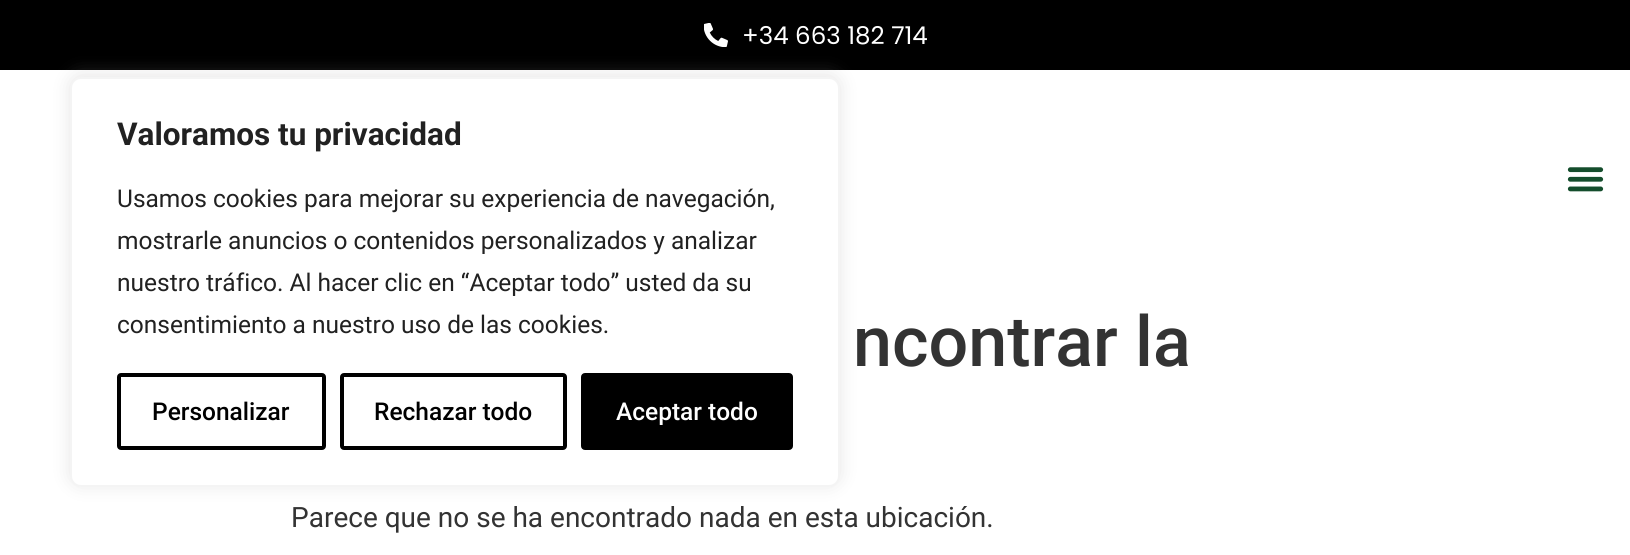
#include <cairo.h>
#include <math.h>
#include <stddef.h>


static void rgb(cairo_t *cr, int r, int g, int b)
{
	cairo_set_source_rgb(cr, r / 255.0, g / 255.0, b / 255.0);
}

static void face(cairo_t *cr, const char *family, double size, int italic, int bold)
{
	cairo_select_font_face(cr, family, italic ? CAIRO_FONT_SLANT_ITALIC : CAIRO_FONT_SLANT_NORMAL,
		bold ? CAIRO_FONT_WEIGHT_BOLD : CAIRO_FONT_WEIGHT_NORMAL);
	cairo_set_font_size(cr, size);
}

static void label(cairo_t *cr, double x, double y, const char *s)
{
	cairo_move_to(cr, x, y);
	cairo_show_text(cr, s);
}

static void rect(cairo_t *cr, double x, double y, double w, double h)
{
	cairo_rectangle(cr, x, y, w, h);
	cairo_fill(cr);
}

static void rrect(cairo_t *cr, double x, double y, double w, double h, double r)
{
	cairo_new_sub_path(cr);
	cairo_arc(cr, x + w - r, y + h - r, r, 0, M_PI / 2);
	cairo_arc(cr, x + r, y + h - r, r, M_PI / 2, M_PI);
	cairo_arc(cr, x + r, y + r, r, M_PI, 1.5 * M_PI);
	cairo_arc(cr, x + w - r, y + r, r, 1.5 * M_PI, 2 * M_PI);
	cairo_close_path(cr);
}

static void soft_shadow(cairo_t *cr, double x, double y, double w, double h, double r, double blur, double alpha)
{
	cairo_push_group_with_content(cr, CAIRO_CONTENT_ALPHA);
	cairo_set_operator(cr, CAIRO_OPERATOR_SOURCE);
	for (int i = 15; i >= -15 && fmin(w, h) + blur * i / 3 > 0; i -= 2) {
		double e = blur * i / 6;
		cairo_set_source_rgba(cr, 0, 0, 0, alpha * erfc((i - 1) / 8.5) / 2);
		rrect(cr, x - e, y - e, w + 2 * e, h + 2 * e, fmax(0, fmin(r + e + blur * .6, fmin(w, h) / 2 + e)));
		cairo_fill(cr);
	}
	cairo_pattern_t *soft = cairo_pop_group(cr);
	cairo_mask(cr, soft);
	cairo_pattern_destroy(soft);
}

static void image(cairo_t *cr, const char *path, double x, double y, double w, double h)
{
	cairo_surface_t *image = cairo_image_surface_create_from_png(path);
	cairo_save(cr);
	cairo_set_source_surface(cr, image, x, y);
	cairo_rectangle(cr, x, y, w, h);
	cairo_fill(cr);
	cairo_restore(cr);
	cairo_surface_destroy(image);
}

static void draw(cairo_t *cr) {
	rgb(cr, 255, 255, 255);
	cairo_paint(cr);
	rgb(cr, 0, 0, 0);
	rect(cr, 0, 0, 1630, 70);
	image(cr, "image0.png", 704, 23, 24, 24);
	face(cr, "Poppins", 24.5, 0, 0);
	rgb(cr, 255, 255, 255);
	label(cr, 742, 44, "+34 663 182 714");
	image(cr, "image1.png", 1567, 167, 37, 25);
	rgb(cr, 172, 171, 171);
	soft_shadow(cr, 70, 75, 770, 410, 11, 9, 0.3);
	rgb(cr, 255, 255, 255);
	rrect(cr, 71, 78, 768, 408, 10);
	cairo_fill_preserve(cr);
	rgb(cr, 244, 244, 244);
	cairo_stroke(cr);
	face(cr, "Roboto", 31.5, 0, 1);
	rgb(cr, 33, 33, 33);
	label(cr, 117, 145, "Valoramos tu privacidad");
	face(cr, "Roboto", 24.5, 0, 0);
	label(cr, 117, 207, "Usamos cookies para mejorar su experiencia de navegación,");
	label(cr, 117, 249, "mostrarle anuncios o contenidos personalizados y analizar");
	label(cr, 117, 291, "nuestro tráfico. Al hacer clic en “Aceptar todo” usted da su");
	label(cr, 117, 333, "consentimiento a nuestro uso de las cookies.");
	rrect(cr, 119, 375, 205, 73, 2);
	rgb(cr, 0, 0, 0);
	cairo_set_line_width(cr, 4);
	cairo_stroke(cr);
	face(cr, "Roboto Medium", 24.5, 0, 0);
	label(cr, 152, 420, "Personalizar");
	rrect(cr, 342, 375, 223, 73, 2);
	cairo_stroke(cr);
	label(cr, 374, 420, "Rechazar todo");
	rrect(cr, 583, 375, 208, 73, 2);
	cairo_fill_preserve(cr);
	cairo_stroke(cr);
	rgb(cr, 255, 255, 255);
	label(cr, 616, 420, "Aceptar todo");
	face(cr, "Roboto Medium", 70, 0, 0);
	rgb(cr, 51, 51, 51);
	label(cr, 853, 366, "ncontrar la");
	face(cr, "Roboto", 28, 0, 0);
	label(cr, 291, 527, "Parece que no se ha encontrado nada en esta ubicación.");
}

int main(void) {
	cairo_surface_t *surface = cairo_image_surface_create(CAIRO_FORMAT_RGB24, 1630, 555);
	cairo_t *cr = cairo_create(surface);
	cairo_font_options_t *options = cairo_font_options_create();
	cairo_font_options_set_hint_metrics(options, CAIRO_HINT_METRICS_OFF);
	cairo_font_options_set_hint_style(options, CAIRO_HINT_STYLE_NONE);
	cairo_set_font_options(cr, options);
	cairo_set_miter_limit(cr, 4);
	draw(cr);
	cairo_surface_write_to_png(surface, "render.png");
	cairo_font_options_destroy(options);
	cairo_destroy(cr);
	cairo_surface_destroy(surface);
	return 0;
}
